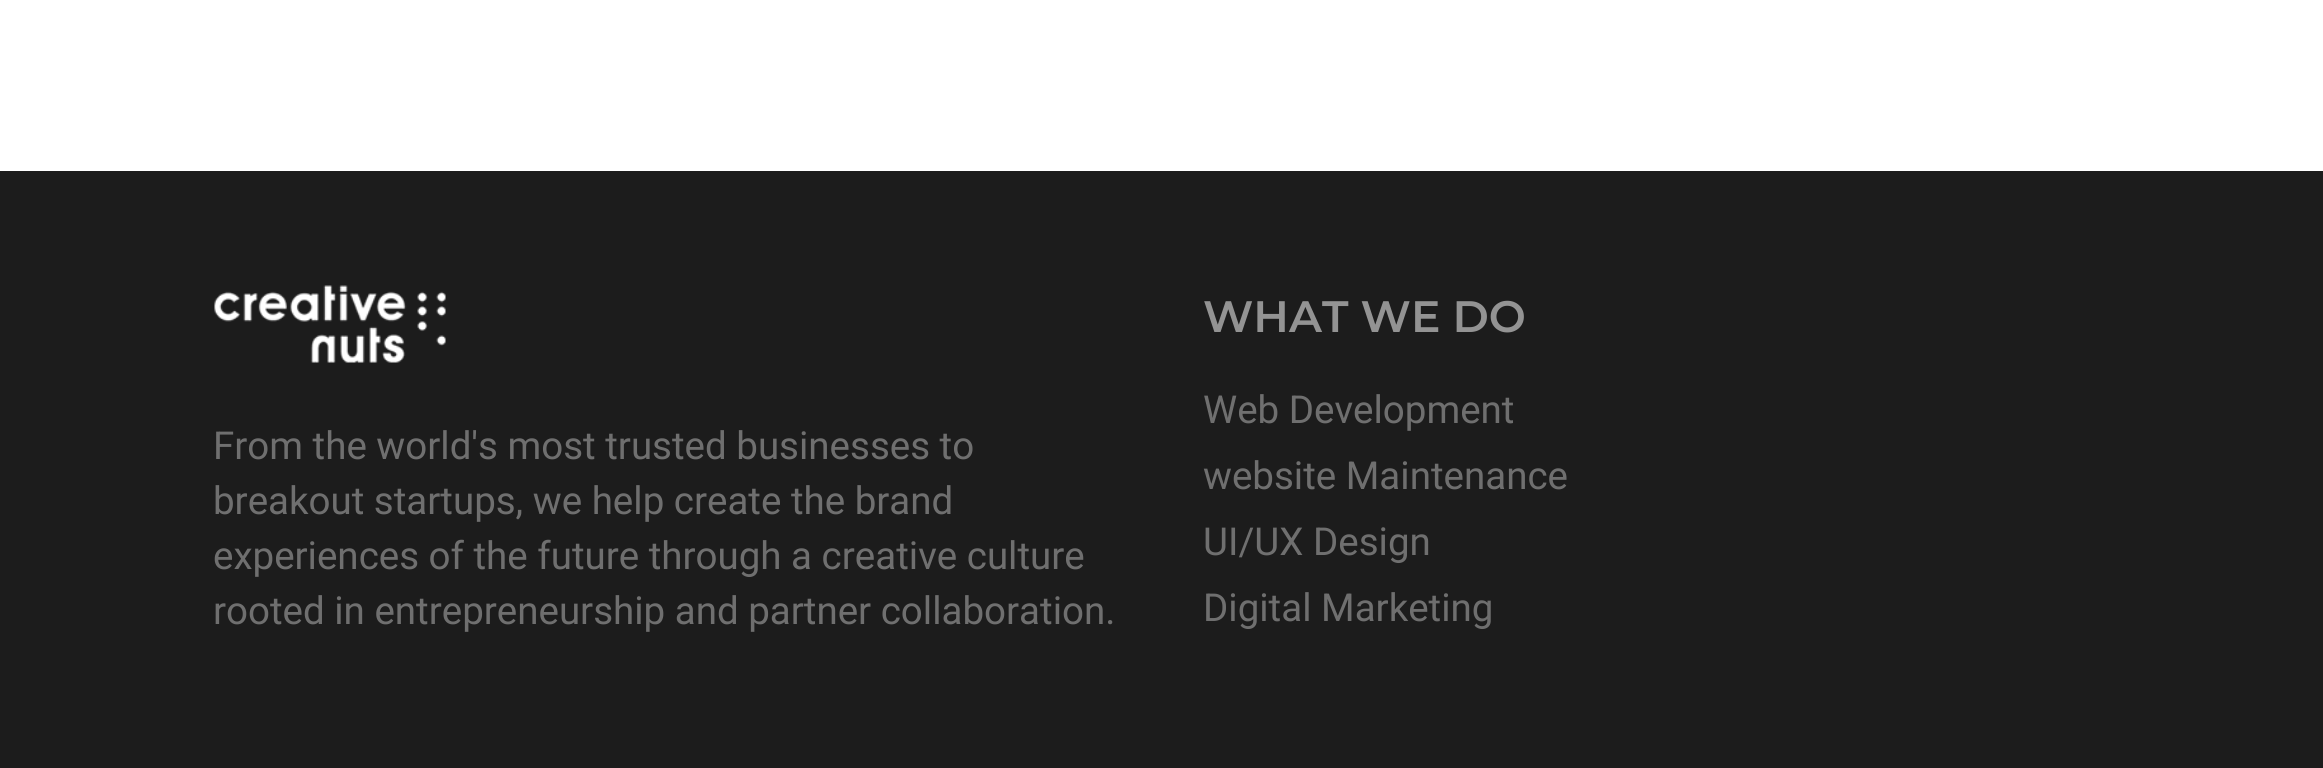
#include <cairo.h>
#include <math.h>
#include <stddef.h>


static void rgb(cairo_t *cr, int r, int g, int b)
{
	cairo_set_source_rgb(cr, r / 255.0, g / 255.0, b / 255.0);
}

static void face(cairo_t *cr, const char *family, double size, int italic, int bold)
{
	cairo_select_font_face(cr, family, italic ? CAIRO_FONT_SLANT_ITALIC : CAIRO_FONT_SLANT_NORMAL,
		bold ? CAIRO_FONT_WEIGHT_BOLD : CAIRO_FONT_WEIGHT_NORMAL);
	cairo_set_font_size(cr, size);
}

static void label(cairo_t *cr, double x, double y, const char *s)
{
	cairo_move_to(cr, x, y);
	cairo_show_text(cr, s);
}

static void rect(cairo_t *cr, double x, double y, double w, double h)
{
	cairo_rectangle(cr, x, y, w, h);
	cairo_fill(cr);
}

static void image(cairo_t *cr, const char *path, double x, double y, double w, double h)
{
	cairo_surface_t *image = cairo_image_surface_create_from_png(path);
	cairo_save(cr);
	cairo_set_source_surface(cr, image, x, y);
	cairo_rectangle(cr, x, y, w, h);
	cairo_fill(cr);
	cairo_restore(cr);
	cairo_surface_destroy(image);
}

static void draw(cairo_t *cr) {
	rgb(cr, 255, 255, 255);
	cairo_paint(cr);
	rgb(cr, 28, 28, 28);
	rect(cr, 0, 171, 2323, 597);
	image(cr, "image0.png", 214, 285, 232, 78);
	face(cr, "Roboto", 38.5, 0, 0);
	rgb(cr, 111, 111, 111);
	label(cr, 213, 459, "From the world's most trusted businesses to");
	label(cr, 213, 514, "breakout startups, we help create the brand");
	label(cr, 213, 569, "experiences of the future through a creative culture");
	label(cr, 213, 624, "rooted in entrepreneurship and partner collaboration.");
	face(cr, "Montserrat SemiBold", 44, 0, 0);
	rgb(cr, 147, 147, 147);
	label(cr, 1203, 332, "WHAT WE DO");
	face(cr, "Roboto", 38.5, 0, 0);
	rgb(cr, 111, 111, 111);
	label(cr, 1203, 423, "Web Development");
	label(cr, 1203, 489, "website Maintenance");
	label(cr, 1203, 555, "UI/UX Design");
	label(cr, 1203, 621, "Digital Marketing");
}

int main(void) {
	cairo_surface_t *surface = cairo_image_surface_create(CAIRO_FORMAT_RGB24, 2323, 768);
	cairo_t *cr = cairo_create(surface);
	cairo_font_options_t *options = cairo_font_options_create();
	cairo_font_options_set_hint_metrics(options, CAIRO_HINT_METRICS_OFF);
	cairo_font_options_set_hint_style(options, CAIRO_HINT_STYLE_NONE);
	cairo_set_font_options(cr, options);
	cairo_set_miter_limit(cr, 4);
	draw(cr);
	cairo_surface_write_to_png(surface, "render.png");
	cairo_font_options_destroy(options);
	cairo_destroy(cr);
	cairo_surface_destroy(surface);
	return 0;
}
